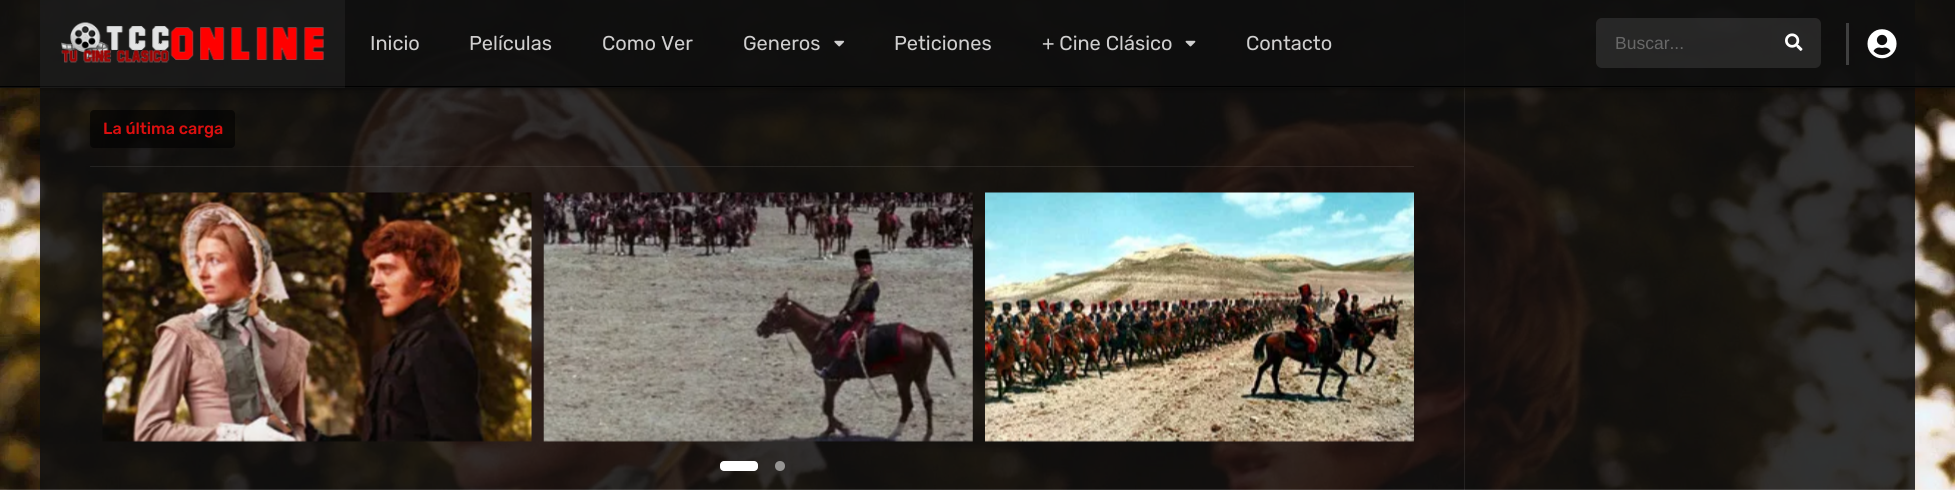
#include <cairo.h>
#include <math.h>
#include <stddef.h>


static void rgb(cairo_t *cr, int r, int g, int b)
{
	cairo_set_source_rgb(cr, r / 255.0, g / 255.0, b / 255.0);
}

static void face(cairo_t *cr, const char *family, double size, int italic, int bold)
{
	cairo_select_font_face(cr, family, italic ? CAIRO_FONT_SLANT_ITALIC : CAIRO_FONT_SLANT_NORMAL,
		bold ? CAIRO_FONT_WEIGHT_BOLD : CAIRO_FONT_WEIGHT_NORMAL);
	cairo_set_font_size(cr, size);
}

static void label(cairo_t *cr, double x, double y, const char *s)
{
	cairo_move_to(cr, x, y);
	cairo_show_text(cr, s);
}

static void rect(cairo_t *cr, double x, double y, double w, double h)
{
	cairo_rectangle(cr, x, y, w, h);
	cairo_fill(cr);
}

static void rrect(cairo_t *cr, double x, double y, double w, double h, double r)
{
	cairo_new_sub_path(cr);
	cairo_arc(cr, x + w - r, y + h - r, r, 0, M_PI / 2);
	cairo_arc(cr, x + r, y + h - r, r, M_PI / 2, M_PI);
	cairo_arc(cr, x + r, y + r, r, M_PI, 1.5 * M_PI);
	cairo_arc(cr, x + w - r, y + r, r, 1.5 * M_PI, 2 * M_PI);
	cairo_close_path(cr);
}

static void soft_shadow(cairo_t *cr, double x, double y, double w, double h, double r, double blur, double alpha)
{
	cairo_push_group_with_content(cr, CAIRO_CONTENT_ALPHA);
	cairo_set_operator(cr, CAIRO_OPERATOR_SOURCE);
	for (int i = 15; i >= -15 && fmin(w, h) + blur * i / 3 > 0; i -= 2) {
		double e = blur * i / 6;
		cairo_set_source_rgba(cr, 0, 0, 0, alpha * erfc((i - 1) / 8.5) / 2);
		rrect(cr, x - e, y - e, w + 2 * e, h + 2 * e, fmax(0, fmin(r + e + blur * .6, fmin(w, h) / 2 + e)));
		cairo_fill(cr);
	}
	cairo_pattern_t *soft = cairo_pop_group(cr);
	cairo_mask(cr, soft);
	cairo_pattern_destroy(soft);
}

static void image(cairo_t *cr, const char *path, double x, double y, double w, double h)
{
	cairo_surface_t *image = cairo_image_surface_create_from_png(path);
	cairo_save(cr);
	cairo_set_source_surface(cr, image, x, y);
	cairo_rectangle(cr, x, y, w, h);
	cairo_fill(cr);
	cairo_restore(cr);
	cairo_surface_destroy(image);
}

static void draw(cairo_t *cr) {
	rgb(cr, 255, 255, 255);
	cairo_paint(cr);
	image(cr, "image0.png", 0, 0, 1955, 490);
	cairo_set_source_rgba(cr, 1, 1, 1, 0.08);
	rect(cr, 1464, 0, 1, 490);
	cairo_save(cr);
	cairo_set_fill_rule(cr, CAIRO_FILL_RULE_EVEN_ODD);
	cairo_new_path(cr);
	cairo_move_to(cr, 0, 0);
	cairo_line_to(cr, 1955, 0);
	cairo_line_to(cr, 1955, 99);
	cairo_line_to(cr, 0, 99);
	cairo_close_path(cr);
	cairo_move_to(cr, 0, 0);
	cairo_line_to(cr, 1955, 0);
	cairo_line_to(cr, 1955, 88);
	cairo_line_to(cr, 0, 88);
	cairo_close_path(cr);
	cairo_clip(cr);
	rgb(cr, 0, 0, 0);
	soft_shadow(cr, 0, 1, 1955, 88, 0, 3, 0.4);
	cairo_restore(cr);
	cairo_set_source_rgba(cr, 0.059, 0.059, 0.059, 0.9);
	rect(cr, 0, 0, 1955, 88);
	rgb(cr, 0, 0, 0);
	rect(cr, 0, 86, 1955, 1);
	cairo_set_source_rgba(cr, 1, 1, 1, 0.05);
	rect(cr, 40, 0, 305, 88);
	image(cr, "image1.png", 61, 22, 263, 41);
	face(cr, "Rubik", 20, 0, 0);
	rgb(cr, 208, 207, 207);
	label(cr, 370, 50, "Inicio");
	label(cr, 469, 50, "Películas");
	label(cr, 602, 50, "Como Ver");
	label(cr, 743, 50, "Generos");
	image(cr, "image2.png", 834, 40, 11, 7);
	label(cr, 894, 50, "Peticiones");
	label(cr, 1042, 50, "+ Cine Clásico");
	image(cr, "image3.png", 1185, 40, 11, 7);
	label(cr, 1246, 50, "Contacto");
	cairo_set_source_rgba(cr, 1, 1, 1, 0.1);
	rrect(cr, 1596, 18, 225, 50, 6);
	cairo_fill(cr);
	face(cr, "Liberation Sans", 17.5, 0, 0);
	rgb(cr, 104, 104, 104);
	label(cr, 1615, 49, "Buscar...");
	image(cr, "image4.png", 1785, 33, 18, 18);
	rgb(cr, 63, 63, 63);
	rect(cr, 1846, 23, 3, 42);
	image(cr, "image5.png", 1867, 29, 30, 30);
	cairo_set_source_rgba(cr, 0, 0, 0, 0.6);
	rrect(cr, 90, 110, 145, 38, 4);
	cairo_fill(cr);
	face(cr, "Rubik Medium", 16.25, 0, 0);
	rgb(cr, 221, 15, 15);
	label(cr, 103, 134, "La última carga");
	cairo_set_source_rgba(cr, 1, 1, 1, 0.08);
	rect(cr, 90, 166, 1324, 1);
	image(cr, "image6.png", 102, 192, 430, 250);
	image(cr, "image7.png", 543, 192, 430, 250);
	image(cr, "image8.png", 985, 192, 429, 250);
	rgb(cr, 255, 255, 255);
	rrect(cr, 720, 461, 38, 10, 4);
	cairo_fill(cr);
	cairo_set_source_rgba(cr, 1, 1, 1, 0.5);
	cairo_arc(cr, 780, 466, 5, 0, 2 * M_PI);
	cairo_fill(cr);
}

int main(void) {
	cairo_surface_t *surface = cairo_image_surface_create(CAIRO_FORMAT_RGB24, 1955, 490);
	cairo_t *cr = cairo_create(surface);
	cairo_font_options_t *options = cairo_font_options_create();
	cairo_font_options_set_hint_metrics(options, CAIRO_HINT_METRICS_OFF);
	cairo_font_options_set_hint_style(options, CAIRO_HINT_STYLE_NONE);
	cairo_set_font_options(cr, options);
	cairo_set_miter_limit(cr, 4);
	draw(cr);
	cairo_surface_write_to_png(surface, "render.png");
	cairo_font_options_destroy(options);
	cairo_destroy(cr);
	cairo_surface_destroy(surface);
	return 0;
}
